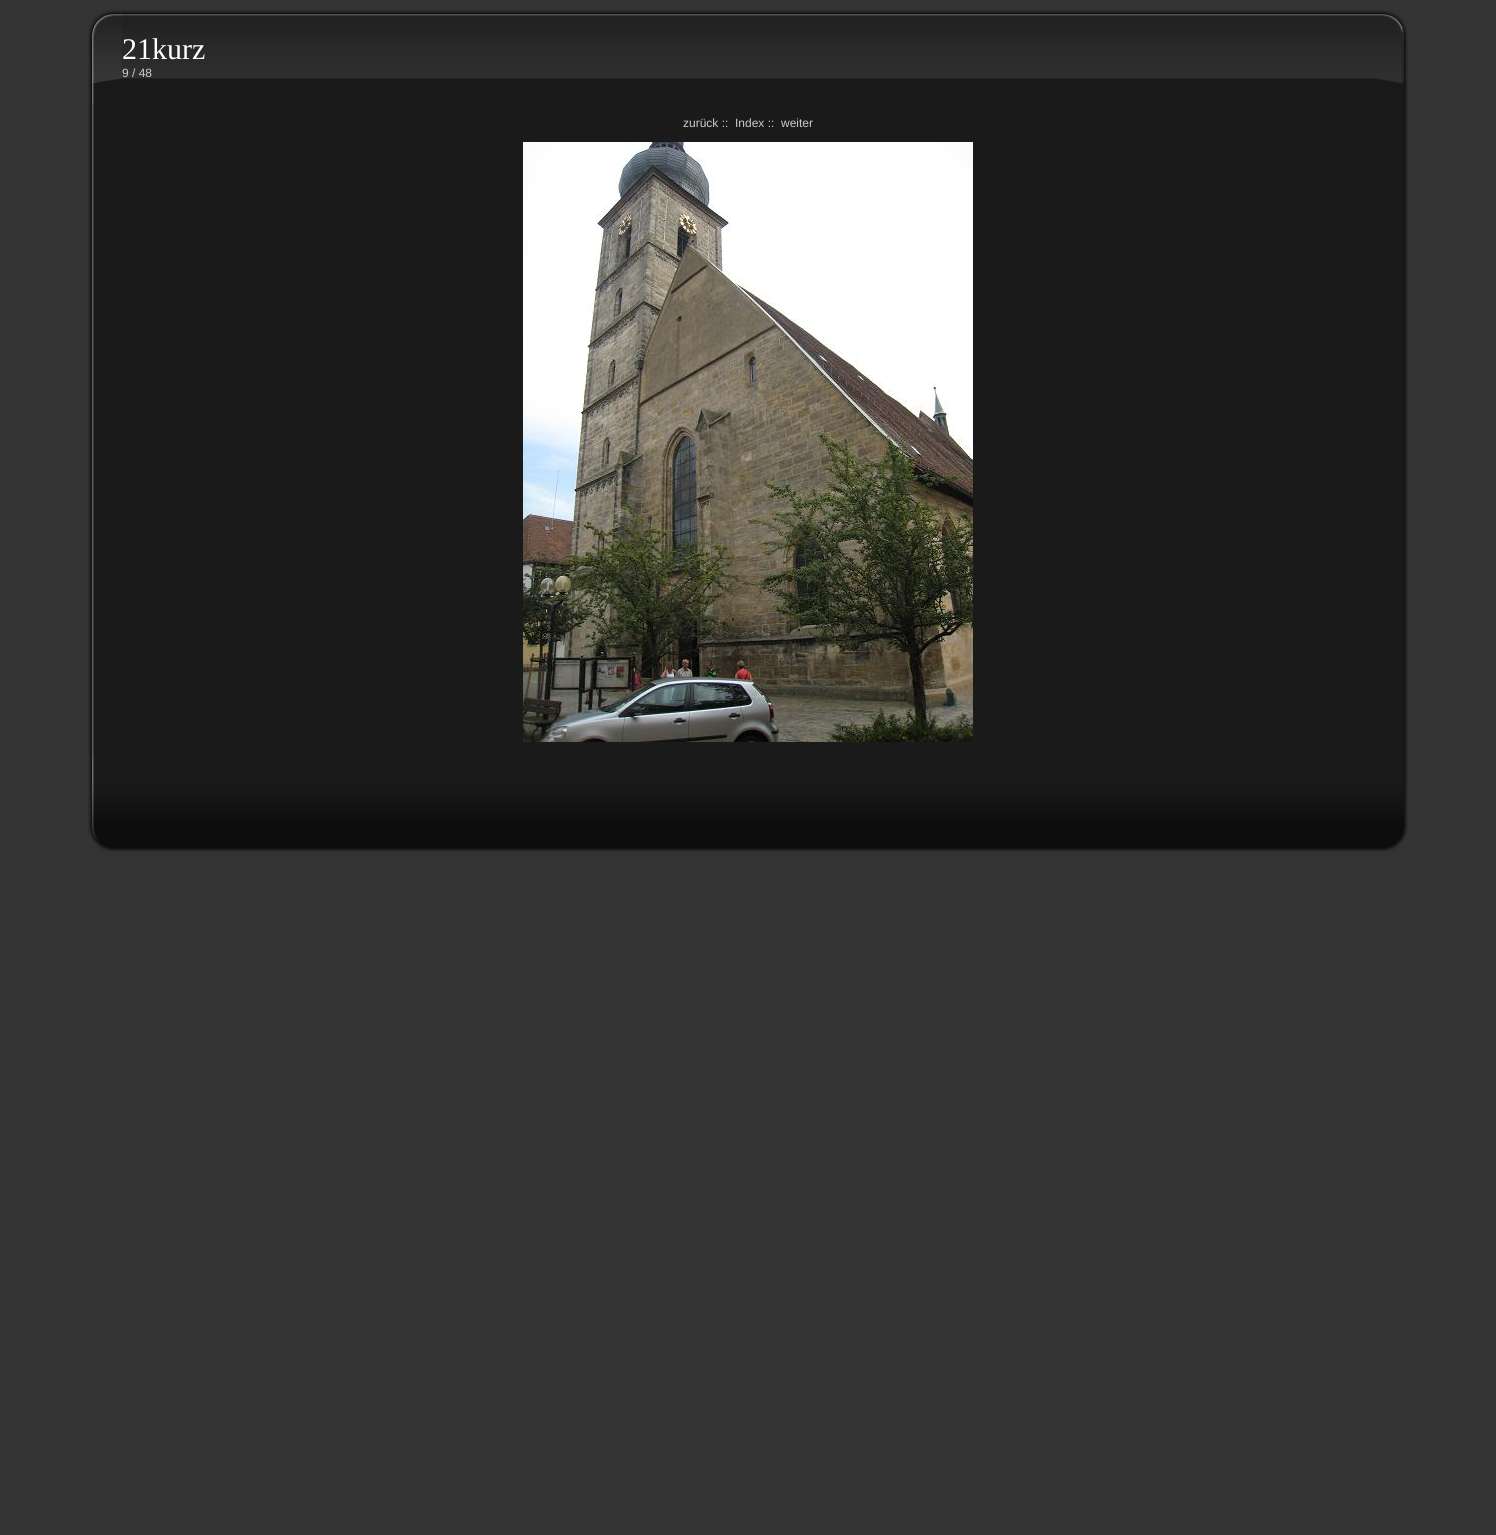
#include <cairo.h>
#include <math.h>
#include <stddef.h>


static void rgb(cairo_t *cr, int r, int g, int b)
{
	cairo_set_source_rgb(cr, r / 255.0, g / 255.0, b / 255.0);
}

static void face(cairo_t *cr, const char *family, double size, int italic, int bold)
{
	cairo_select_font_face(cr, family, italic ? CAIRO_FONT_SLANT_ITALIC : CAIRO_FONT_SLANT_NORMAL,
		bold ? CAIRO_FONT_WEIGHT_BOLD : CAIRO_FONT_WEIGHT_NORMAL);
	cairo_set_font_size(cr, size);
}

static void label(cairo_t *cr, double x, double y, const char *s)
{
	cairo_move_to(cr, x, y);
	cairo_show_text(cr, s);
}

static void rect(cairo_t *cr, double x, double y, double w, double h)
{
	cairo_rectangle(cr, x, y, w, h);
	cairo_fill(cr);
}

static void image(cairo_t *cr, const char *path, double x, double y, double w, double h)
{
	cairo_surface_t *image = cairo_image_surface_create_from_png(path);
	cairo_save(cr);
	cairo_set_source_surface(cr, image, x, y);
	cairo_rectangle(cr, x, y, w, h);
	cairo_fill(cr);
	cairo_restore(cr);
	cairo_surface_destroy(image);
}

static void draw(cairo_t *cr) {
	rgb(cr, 51, 51, 51);
	cairo_paint(cr);
	image(cr, "image0.png", 88, 10, 34, 94);
	image(cr, "image1.png", 122, 10, 1252, 94);
	face(cr, "Liberation Serif", 30, 0, 0);
	rgb(cr, 255, 255, 255);
	label(cr, 122, 59, "21kurz");
	face(cr, "Liberation Sans", 12, 0, 0);
	rgb(cr, 204, 204, 204);
	label(cr, 122, 77, "9 / 48");
	image(cr, "image2.png", 1374, 10, 34, 94);
	image(cr, "image3.png", 88, 104, 34, 654);
	rgb(cr, 26, 26, 26);
	rect(cr, 122, 104, 1252, 654);
	rgb(cr, 204, 204, 204);
	label(cr, 683, 127, "zurück ::");
	label(cr, 735, 127, "Index ::");
	label(cr, 781, 127, "weiter");
	image(cr, "image4.png", 523, 142, 450, 600);
	image(cr, "image5.png", 1374, 104, 34, 654);
	image(cr, "image6.png", 88, 758, 34, 94);
	image(cr, "image7.png", 122, 758, 1252, 94);
	image(cr, "image8.png", 1374, 758, 34, 94);
}

int main(void) {
	cairo_surface_t *surface = cairo_image_surface_create(CAIRO_FORMAT_RGB24, 1496, 1535);
	cairo_t *cr = cairo_create(surface);
	cairo_font_options_t *options = cairo_font_options_create();
	cairo_font_options_set_hint_metrics(options, CAIRO_HINT_METRICS_OFF);
	cairo_font_options_set_hint_style(options, CAIRO_HINT_STYLE_NONE);
	cairo_set_font_options(cr, options);
	cairo_set_miter_limit(cr, 4);
	draw(cr);
	cairo_surface_write_to_png(surface, "render.png");
	cairo_font_options_destroy(options);
	cairo_destroy(cr);
	cairo_surface_destroy(surface);
	return 0;
}
